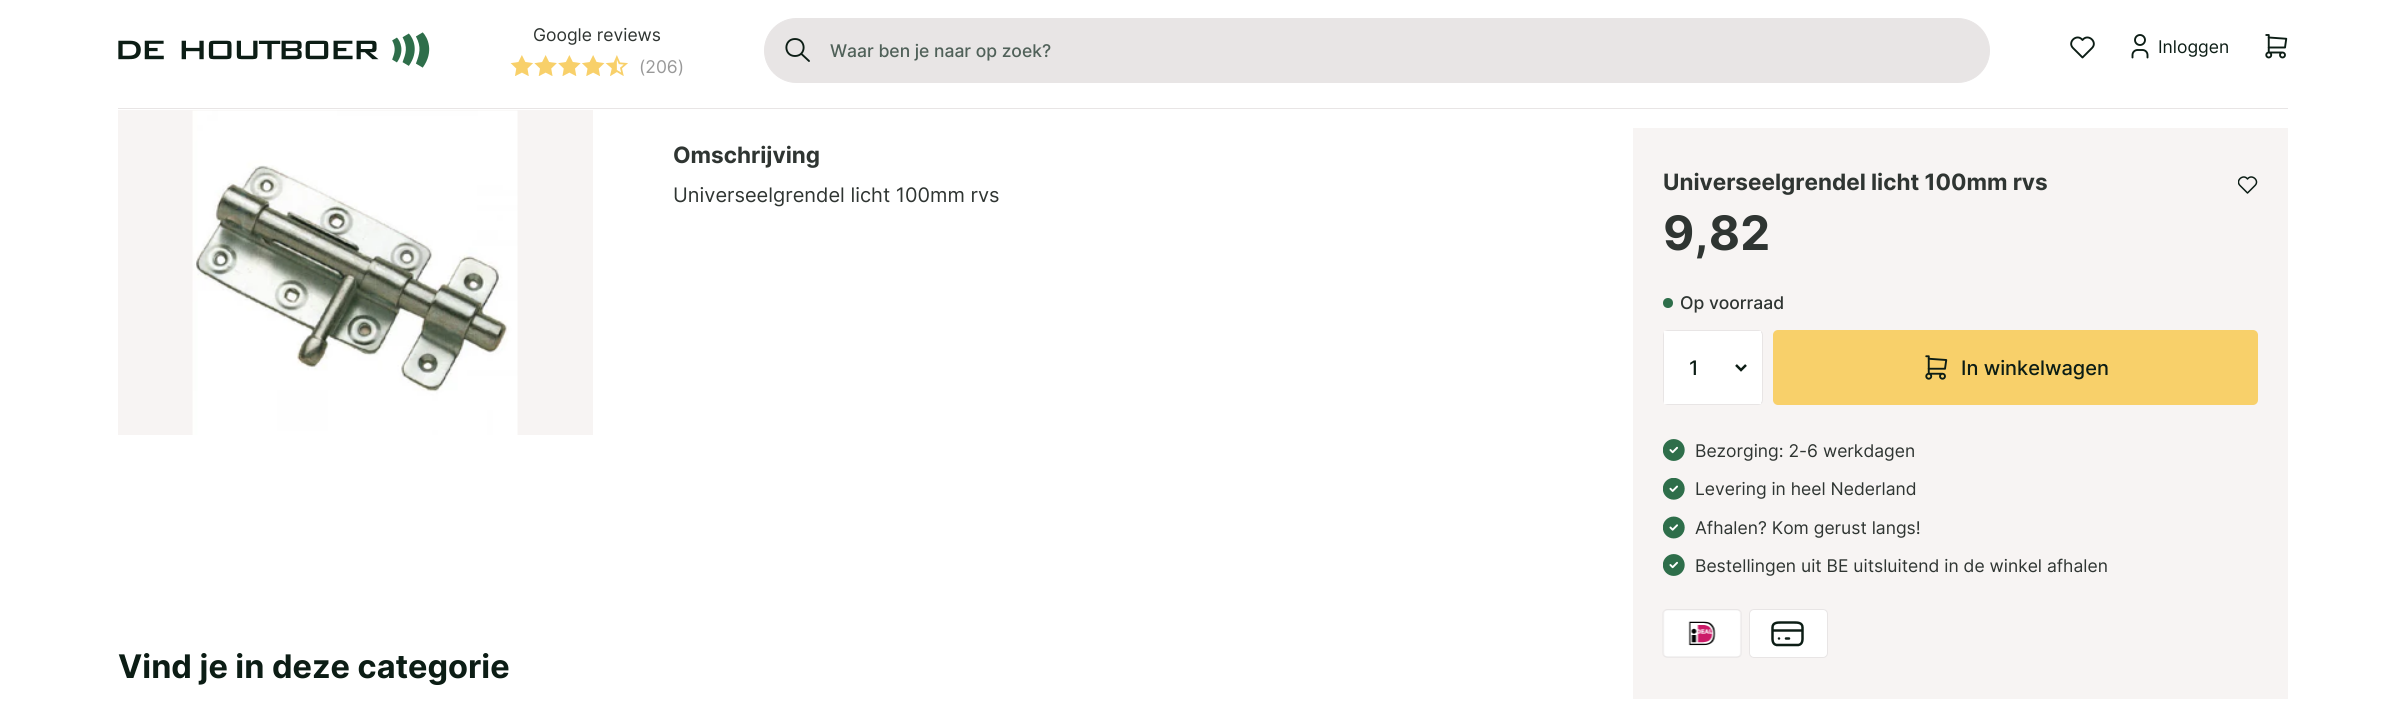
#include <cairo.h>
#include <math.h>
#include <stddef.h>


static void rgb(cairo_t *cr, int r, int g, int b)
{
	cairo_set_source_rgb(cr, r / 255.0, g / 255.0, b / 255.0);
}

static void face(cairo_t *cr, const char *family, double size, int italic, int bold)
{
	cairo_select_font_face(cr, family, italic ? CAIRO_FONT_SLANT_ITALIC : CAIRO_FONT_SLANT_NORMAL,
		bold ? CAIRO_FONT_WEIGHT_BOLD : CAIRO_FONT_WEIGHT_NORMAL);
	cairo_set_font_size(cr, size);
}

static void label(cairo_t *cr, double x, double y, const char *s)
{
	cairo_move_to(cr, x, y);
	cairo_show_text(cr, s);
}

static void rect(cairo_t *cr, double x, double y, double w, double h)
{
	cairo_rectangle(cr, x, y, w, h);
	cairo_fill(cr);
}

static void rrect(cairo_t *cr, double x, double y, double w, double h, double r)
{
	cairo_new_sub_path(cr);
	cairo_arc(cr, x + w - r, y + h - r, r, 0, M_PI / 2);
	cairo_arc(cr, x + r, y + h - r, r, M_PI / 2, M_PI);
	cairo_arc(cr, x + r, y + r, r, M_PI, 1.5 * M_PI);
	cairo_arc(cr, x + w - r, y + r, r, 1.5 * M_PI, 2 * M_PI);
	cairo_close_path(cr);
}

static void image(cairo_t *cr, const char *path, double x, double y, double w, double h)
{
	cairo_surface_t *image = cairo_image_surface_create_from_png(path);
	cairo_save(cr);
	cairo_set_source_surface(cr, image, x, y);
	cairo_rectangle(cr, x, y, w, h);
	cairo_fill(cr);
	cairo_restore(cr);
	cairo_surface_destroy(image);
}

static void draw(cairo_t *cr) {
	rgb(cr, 255, 255, 255);
	cairo_paint(cr);
	image(cr, "image0.png", 118, 32, 312, 36);
	face(cr, "Inter", 17.5, 0, 0);
	rgb(cr, 47, 53, 50);
	label(cr, 533, 41, "Google reviews");
	image(cr, "image1.png", 510, 55, 23, 21);
	image(cr, "image2.png", 534, 55, 23, 21);
	image(cr, "image3.png", 558, 55, 23, 21);
	image(cr, "image4.png", 582, 55, 23, 21);
	image(cr, "image5.png", 605, 55, 23, 21);
	rgb(cr, 153, 153, 153);
	label(cr, 639, 73, "(206)");
	rgb(cr, 232, 229, 229);
	rrect(cr, 764.5, 18.5, 1225, 64, 32);
	cairo_fill_preserve(cr);
	cairo_set_line_width(cr, 1);
	cairo_stroke(cr);
	cairo_new_path(cr);
	cairo_move_to(cr, 795, 56);
	cairo_curve_to(cr, 806.5, 56, 806.5, 39, 795, 39);
	cairo_curve_to(cr, 783.5, 39, 783.5, 56, 795, 56);
	cairo_close_path(cr);
	cairo_move_to(cr, 809, 61);
	cairo_line_to(cr, 801.5, 54);
	rgb(cr, 12, 29, 21);
	cairo_set_line_width(cr, 1.9);
	cairo_set_line_cap(cr, CAIRO_LINE_CAP_ROUND);
	cairo_set_line_join(cr, CAIRO_LINE_JOIN_ROUND);
	cairo_stroke(cr);
	face(cr, "Inter Medium", 17.5, 0, 0);
	rgb(cr, 80, 97, 89);
	label(cr, 830, 57, "Waar ben je naar op zoek?");
	cairo_new_path(cr);
	cairo_move_to(cr, 2092, 48);
	cairo_line_to(cr, 2082.5, 57.5);
	cairo_line_to(cr, 2073, 48);
	cairo_move_to(cr, 2073, 48);
	cairo_curve_to(cr, 2067, 42, 2077, 33, 2082.5, 40);
	cairo_curve_to(cr, 2088, 33, 2098, 42, 2092, 48);
	rgb(cr, 12, 29, 21);
	cairo_stroke(cr);
	image(cr, "image6.png", 2131, 34, 18, 25);
	face(cr, "Inter", 17.5, 0, 0);
	label(cr, 2158, 53, "Inloggen");
	image(cr, "image7.png", 2265, 34, 23, 25);
	rgb(cr, 232, 229, 229);
	rect(cr, 118, 108, 2170, 1);
	rgb(cr, 247, 244, 243);
	rect(cr, 118, 110, 475, 325);
	image(cr, "image8.png", 192, 110, 326, 325);
	face(cr, "Inter", 22.5, 0, 1);
	rgb(cr, 47, 53, 50);
	label(cr, 673, 163, "Omschrijving");
	face(cr, "Inter", 20, 0, 0);
	label(cr, 673, 202, "Universeelgrendel licht 100mm rvs");
	rgb(cr, 247, 244, 243);
	rect(cr, 1633, 128, 655, 571);
	face(cr, "Inter", 22.5, 0, 1);
	rgb(cr, 47, 53, 50);
	label(cr, 1663, 190, "Universeelgrendel licht 100mm rvs");
	cairo_save(cr);
	cairo_rectangle(cr, 2238, 175, 20, 20);
	cairo_clip(cr);
	cairo_new_path(cr);
	cairo_move_to(cr, 2255, 185.5);
	cairo_line_to(cr, 2247.5, 193);
	cairo_line_to(cr, 2240, 185.5);
	cairo_move_to(cr, 2240, 185.5);
	cairo_curve_to(cr, 2235, 180.5, 2243.5, 173.5, 2247.5, 179);
	cairo_curve_to(cr, 2251.5, 173.5, 2260, 180.5, 2255, 185.5);
	rgb(cr, 12, 29, 21);
	cairo_set_line_width(cr, 1.5);
	cairo_stroke(cr);
	cairo_restore(cr);
	face(cr, "Inter", 47.5, 0, 1);
	label(cr, 1663, 250, "9,82");
	rgb(cr, 46, 110, 74);
	cairo_new_path(cr);
	cairo_arc(cr, 1668, 303, 5, 0, 2 * M_PI);
	cairo_fill(cr);
	face(cr, "Inter Medium", 17.5, 0, 0);
	rgb(cr, 47, 53, 50);
	label(cr, 1680, 309, "Op voorraad");
	rgb(cr, 255, 255, 255);
	rrect(cr, 1663.5, 330.5, 99, 74, 4.5);
	cairo_fill_preserve(cr);
	rgb(cr, 232, 229, 229);
	cairo_set_line_width(cr, 1);
	cairo_set_line_cap(cr, CAIRO_LINE_CAP_BUTT);
	cairo_set_line_join(cr, CAIRO_LINE_JOIN_MITER);
	cairo_stroke(cr);
	rgb(cr, 255, 255, 255);
	rect(cr, 1664, 331, 97, 73);
	cairo_new_path(cr);
	cairo_move_to(cr, 1736, 365);
	cairo_line_to(cr, 1741, 370);
	cairo_line_to(cr, 1746, 365);
	rgb(cr, 12, 29, 21);
	cairo_set_line_width(cr, 2.5);
	cairo_stroke(cr);
	face(cr, "Inter Medium", 20, 0, 0);
	label(cr, 1689, 375, "1");
	rgb(cr, 248, 208, 106);
	rrect(cr, 1773, 330, 485, 75, 5);
	cairo_fill(cr);
	image(cr, "image9.png", 1925, 355, 23, 25);
	rgb(cr, 12, 29, 21);
	label(cr, 1961, 375, "In winkelwagen");
	image(cr, "image10.png", 1663, 439, 22, 22);
	face(cr, "Inter", 17.5, 0, 0);
	rgb(cr, 47, 53, 50);
	label(cr, 1695, 457, "Bezorging: 2-6 werkdagen");
	image(cr, "image11.png", 1663, 478, 22, 22);
	label(cr, 1695, 495, "Levering in heel Nederland");
	image(cr, "image12.png", 1663, 516, 22, 23);
	label(cr, 1695, 534, "Afhalen? Kom gerust langs!");
	image(cr, "image10.png", 1663, 554, 22, 22);
	label(cr, 1695, 572, "Bestellingen uit BE uitsluitend in de winkel afhalen");
	image(cr, "image13.png", 1662, 609, 80, 49);
	rgb(cr, 255, 255, 255);
	rrect(cr, 1749.5, 609.5, 78, 48, 4.5);
	cairo_fill_preserve(cr);
	rgb(cr, 232, 229, 229);
	cairo_set_line_width(cr, 1);
	cairo_stroke(cr);
	cairo_new_path(cr);
	cairo_move_to(cr, 1772.5, 630.5);
	cairo_line_to(cr, 1802.5, 630.5);
	cairo_move_to(cr, 1779, 638.5);
	cairo_line_to(cr, 1779, 638.5);
	cairo_move_to(cr, 1786, 638.5);
	cairo_line_to(cr, 1789, 638.5);
	cairo_move_to(cr, 1772.5, 627.5);
	cairo_curve_to(cr, 1772.5, 622.5, 1777.5, 622.5, 1781, 622.5);
	cairo_line_to(cr, 1794, 622.5);
	cairo_curve_to(cr, 1797.5, 622.5, 1802.5, 622.5, 1802.5, 627.5);
	cairo_line_to(cr, 1802.5, 636);
	cairo_curve_to(cr, 1802.5, 639.5, 1803, 644, 1798.5, 645);
	cairo_line_to(cr, 1776.5, 645);
	cairo_curve_to(cr, 1772, 644, 1772.5, 639.5, 1772.5, 636);
	cairo_close_path(cr);
	rgb(cr, 12, 29, 21);
	cairo_set_line_width(cr, 2.5);
	cairo_set_line_cap(cr, CAIRO_LINE_CAP_ROUND);
	cairo_set_line_join(cr, CAIRO_LINE_JOIN_ROUND);
	cairo_stroke(cr);
	face(cr, "Inter", 32.5, 0, 1);
	label(cr, 118, 678, "Vind je in deze categorie");
}

int main(void) {
	cairo_surface_t *surface = cairo_image_surface_create(CAIRO_FORMAT_RGB24, 2404, 718);
	cairo_t *cr = cairo_create(surface);
	cairo_font_options_t *options = cairo_font_options_create();
	cairo_font_options_set_hint_metrics(options, CAIRO_HINT_METRICS_OFF);
	cairo_font_options_set_hint_style(options, CAIRO_HINT_STYLE_NONE);
	cairo_set_font_options(cr, options);
	cairo_set_miter_limit(cr, 4);
	draw(cr);
	cairo_surface_write_to_png(surface, "render.png");
	cairo_font_options_destroy(options);
	cairo_destroy(cr);
	cairo_surface_destroy(surface);
	return 0;
}
